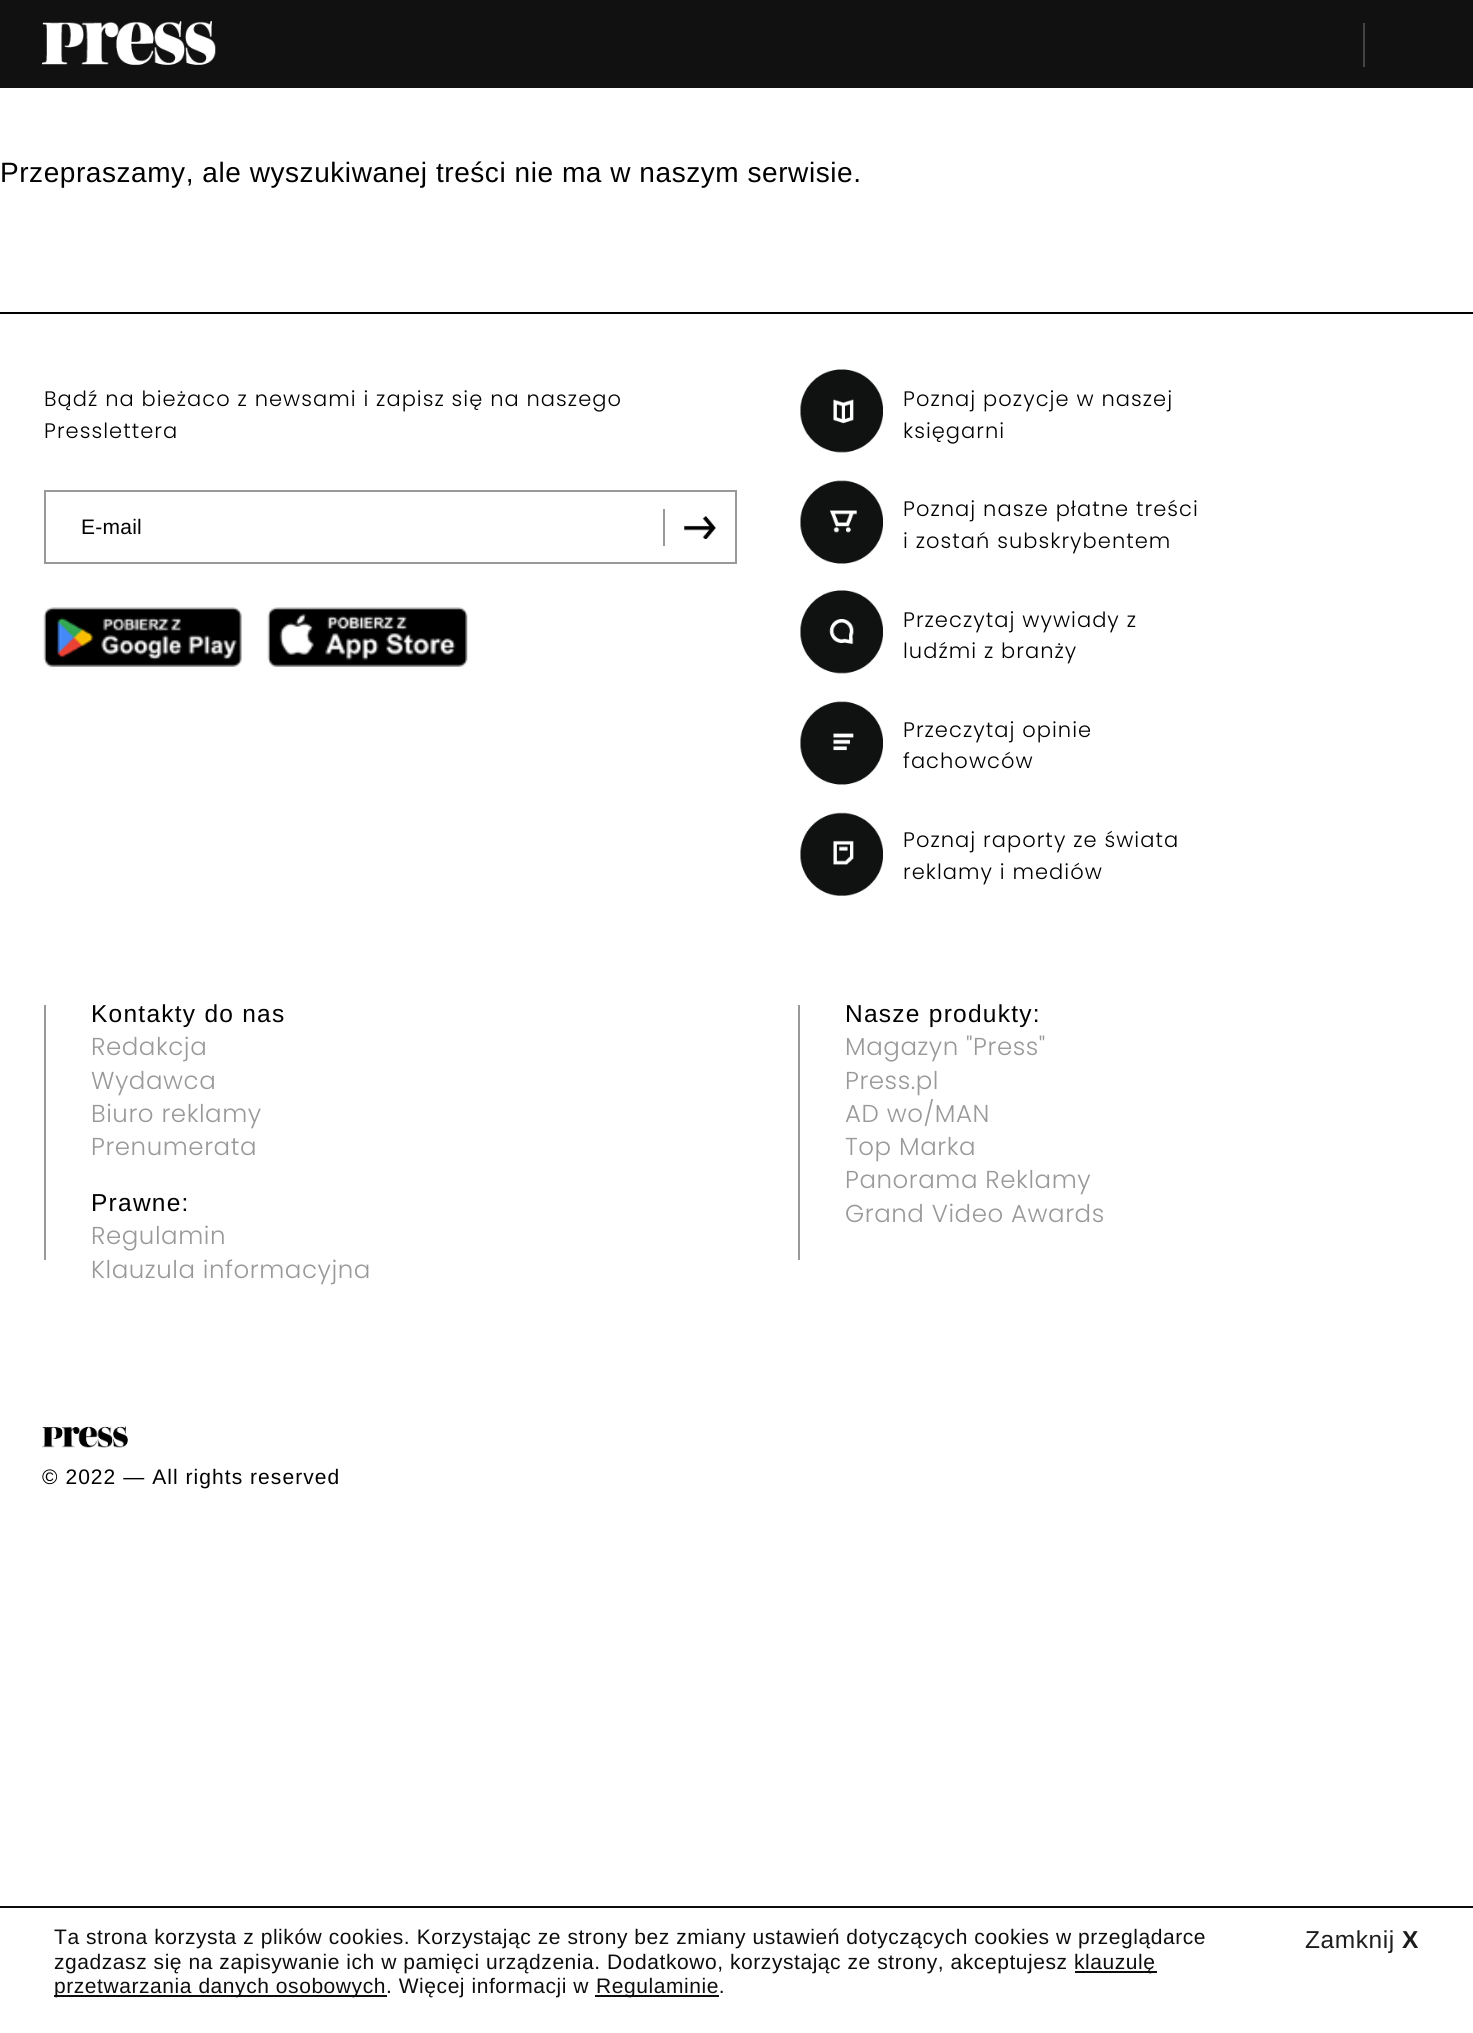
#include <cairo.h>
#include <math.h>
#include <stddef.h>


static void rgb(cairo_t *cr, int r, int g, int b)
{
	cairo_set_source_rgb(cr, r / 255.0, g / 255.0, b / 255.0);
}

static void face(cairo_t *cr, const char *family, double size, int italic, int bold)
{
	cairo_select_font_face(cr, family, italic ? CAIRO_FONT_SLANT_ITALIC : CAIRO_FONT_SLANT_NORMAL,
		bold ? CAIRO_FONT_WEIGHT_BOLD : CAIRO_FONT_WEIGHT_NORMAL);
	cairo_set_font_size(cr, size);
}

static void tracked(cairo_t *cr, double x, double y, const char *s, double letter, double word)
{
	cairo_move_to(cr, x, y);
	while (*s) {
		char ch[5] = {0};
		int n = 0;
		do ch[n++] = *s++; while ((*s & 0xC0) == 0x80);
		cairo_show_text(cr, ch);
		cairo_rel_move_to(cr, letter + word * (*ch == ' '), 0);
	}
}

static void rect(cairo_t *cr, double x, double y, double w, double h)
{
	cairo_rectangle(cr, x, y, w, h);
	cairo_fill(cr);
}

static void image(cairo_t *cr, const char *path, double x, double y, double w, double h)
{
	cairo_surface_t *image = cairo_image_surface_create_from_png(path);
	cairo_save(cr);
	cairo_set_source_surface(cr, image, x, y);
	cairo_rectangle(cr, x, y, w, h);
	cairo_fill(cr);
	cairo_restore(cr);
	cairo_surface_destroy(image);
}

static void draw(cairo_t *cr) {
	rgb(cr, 255, 255, 255);
	cairo_paint(cr);
	rgb(cr, 17, 17, 17);
	rect(cr, 0, 0, 1473, 88);
	image(cr, "image0.png", 42, 21, 174, 44);
	rgb(cr, 68, 68, 68);
	rect(cr, 1363, 23, 2, 44);
	face(cr, "Liberation Sans", 28, 0, 0);
	rgb(cr, 0, 0, 0);
	tracked(cr, 0, 182, "Przepraszamy, ale wyszukiwanej treści nie ma w naszym serwisie.", 0.56, 0);
	rect(cr, 0, 312, 1473, 2);
	face(cr, "Poppins Light", 21, 0, 0);
	tracked(cr, 44, 406, "Bądź na bieżaco z newsami i zapisz się na naszego", 1.05, 0);
	tracked(cr, 44, 438, "Presslettera", 1.05, 0);
	cairo_rectangle(cr, 45, 491, 691, 72);
	rgb(cr, 153, 153, 153);
	cairo_stroke(cr);
	face(cr, "Liberation Sans", 21, 0, 0);
	rgb(cr, 0, 0, 0);
	tracked(cr, 81, 534, "E-mail", 0.25, 0);
	image(cr, "image1.png", 684, 516, 32, 23);
	rgb(cr, 153, 153, 153);
	rect(cr, 663, 509, 2, 37);
	image(cr, "image2.png", 43, 607, 199, 60);
	image(cr, "image3.png", 267, 607, 201, 60);
	image(cr, "image4.png", 800, 369, 83, 84);
	face(cr, "Poppins Light", 21, 0, 0);
	rgb(cr, 0, 0, 0);
	tracked(cr, 903, 406, "Poznaj pozycje w naszej", 1.05, 0);
	tracked(cr, 903, 438, "księgarni", 1.05, 0);
	image(cr, "image5.png", 800, 480, 83, 84);
	tracked(cr, 903, 516, "Poznaj nasze płatne treści", 1.05, 0);
	tracked(cr, 903, 548, "i zostań subskrybentem", 1.05, 0);
	image(cr, "image6.png", 800, 590, 83, 84);
	tracked(cr, 903, 627, "Przeczytaj wywiady z", 1.05, 0);
	tracked(cr, 903, 658, "ludźmi z branży", 1.05, 0);
	image(cr, "image7.png", 800, 701, 83, 84);
	tracked(cr, 903, 737, "Przeczytaj opinie", 1.05, 0);
	tracked(cr, 903, 768, "fachowców", 1.05, 0);
	image(cr, "image8.png", 800, 812, 83, 84);
	tracked(cr, 903, 847, "Poznaj raporty ze świata", 1.05, 0);
	tracked(cr, 903, 879, "reklamy i mediów", 1.05, 0);
	rgb(cr, 153, 153, 153);
	rect(cr, 44, 1005, 2, 255);
	face(cr, "Liberation Sans", 24.5, 0, 0);
	rgb(cr, 0, 0, 0);
	tracked(cr, 91, 1022, "Kontakty do nas", 1.25, 0);
	face(cr, "Poppins Light", 24.5, 0, 0);
	rgb(cr, 153, 153, 153);
	tracked(cr, 91, 1055, "Redakcja", 0.56, 0);
	tracked(cr, 91, 1089, "Wydawca", 0.56, 0);
	tracked(cr, 91, 1122, "Biuro reklamy", 0.56, 0);
	tracked(cr, 91, 1155, "Prenumerata", 0.56, 0);
	face(cr, "Liberation Sans", 24.5, 0, 0);
	rgb(cr, 0, 0, 0);
	tracked(cr, 91, 1211, "Prawne:", 1.25, 0);
	face(cr, "Poppins Light", 24.5, 0, 0);
	rgb(cr, 153, 153, 153);
	tracked(cr, 91, 1244, "Regulamin", 0.56, 0);
	tracked(cr, 91, 1278, "Klauzula informacyjna", 0.56, 0);
	rect(cr, 798, 1005, 2, 255);
	face(cr, "Liberation Sans", 24.5, 0, 0);
	rgb(cr, 0, 0, 0);
	tracked(cr, 845, 1022, "Nasze produkty:", 1.25, 0);
	face(cr, "Poppins Light", 24.5, 0, 0);
	rgb(cr, 153, 153, 153);
	tracked(cr, 845, 1055, "Magazyn \"Press\"", 0.56, 0);
	tracked(cr, 845, 1089, "Press.pl", 0.56, 0);
	tracked(cr, 845, 1122, "AD wo/MAN", 0.56, 0);
	tracked(cr, 845, 1155, "Top Marka", 0.56, 0);
	tracked(cr, 845, 1188, "Panorama Reklamy", 0.56, 0);
	tracked(cr, 845, 1222, "Grand Video Awards", 0.56, 0);
	image(cr, "image9.png", 42, 1426, 86, 22);
	face(cr, "Liberation Sans", 21, 0, 0);
	rgb(cr, 0, 0, 0);
	tracked(cr, 42, 1484, "© 2022 — All rights reserved", 1.05, 0);
	rgb(cr, 13, 13, 13);
	rect(cr, 0, 1906, 1473, 2);
	tracked(cr, 54, 1944, "Ta strona korzysta z plików cookies. Korzystając ze strony bez zmiany ustawień dotyczących cookies w przeglądarce", 0.56, 0);
	tracked(cr, 54, 1969, "zgadzasz się na zapisywanie ich w pamięci urządzenia. Dodatkowo, korzystając ze strony, akceptujesz", 0.56, 0);
	rect(cr, 1075, 1971, 82, 2);
	tracked(cr, 1074, 1969, "klauzulę", 0.56, 0);
	rect(cr, 54, 1995, 333, 2);
	tracked(cr, 54, 1993, "przetwarzania danych osobowych. Więcej informacji w", 0.56, 0);
	rect(cr, 595, 1995, 124, 2);
	tracked(cr, 596, 1993, "Regulaminie.", 0.56, 0);
	face(cr, "Liberation Sans", 24.5, 0, 0);
	rgb(cr, 29, 29, 29);
	tracked(cr, 1305, 1948, "Zamknij", 0.56, 0);
	face(cr, "Liberation Sans", 24.5, 0, 1);
	tracked(cr, 1402, 1948, "X", 0.56, 0);
}

int main(void) {
	cairo_surface_t *surface = cairo_image_surface_create(CAIRO_FORMAT_RGB24, 1473, 2033);
	cairo_t *cr = cairo_create(surface);
	cairo_font_options_t *options = cairo_font_options_create();
	cairo_font_options_set_hint_metrics(options, CAIRO_HINT_METRICS_OFF);
	cairo_font_options_set_hint_style(options, CAIRO_HINT_STYLE_NONE);
	cairo_set_font_options(cr, options);
	cairo_set_miter_limit(cr, 4);
	draw(cr);
	cairo_surface_write_to_png(surface, "render.png");
	cairo_font_options_destroy(options);
	cairo_destroy(cr);
	cairo_surface_destroy(surface);
	return 0;
}
